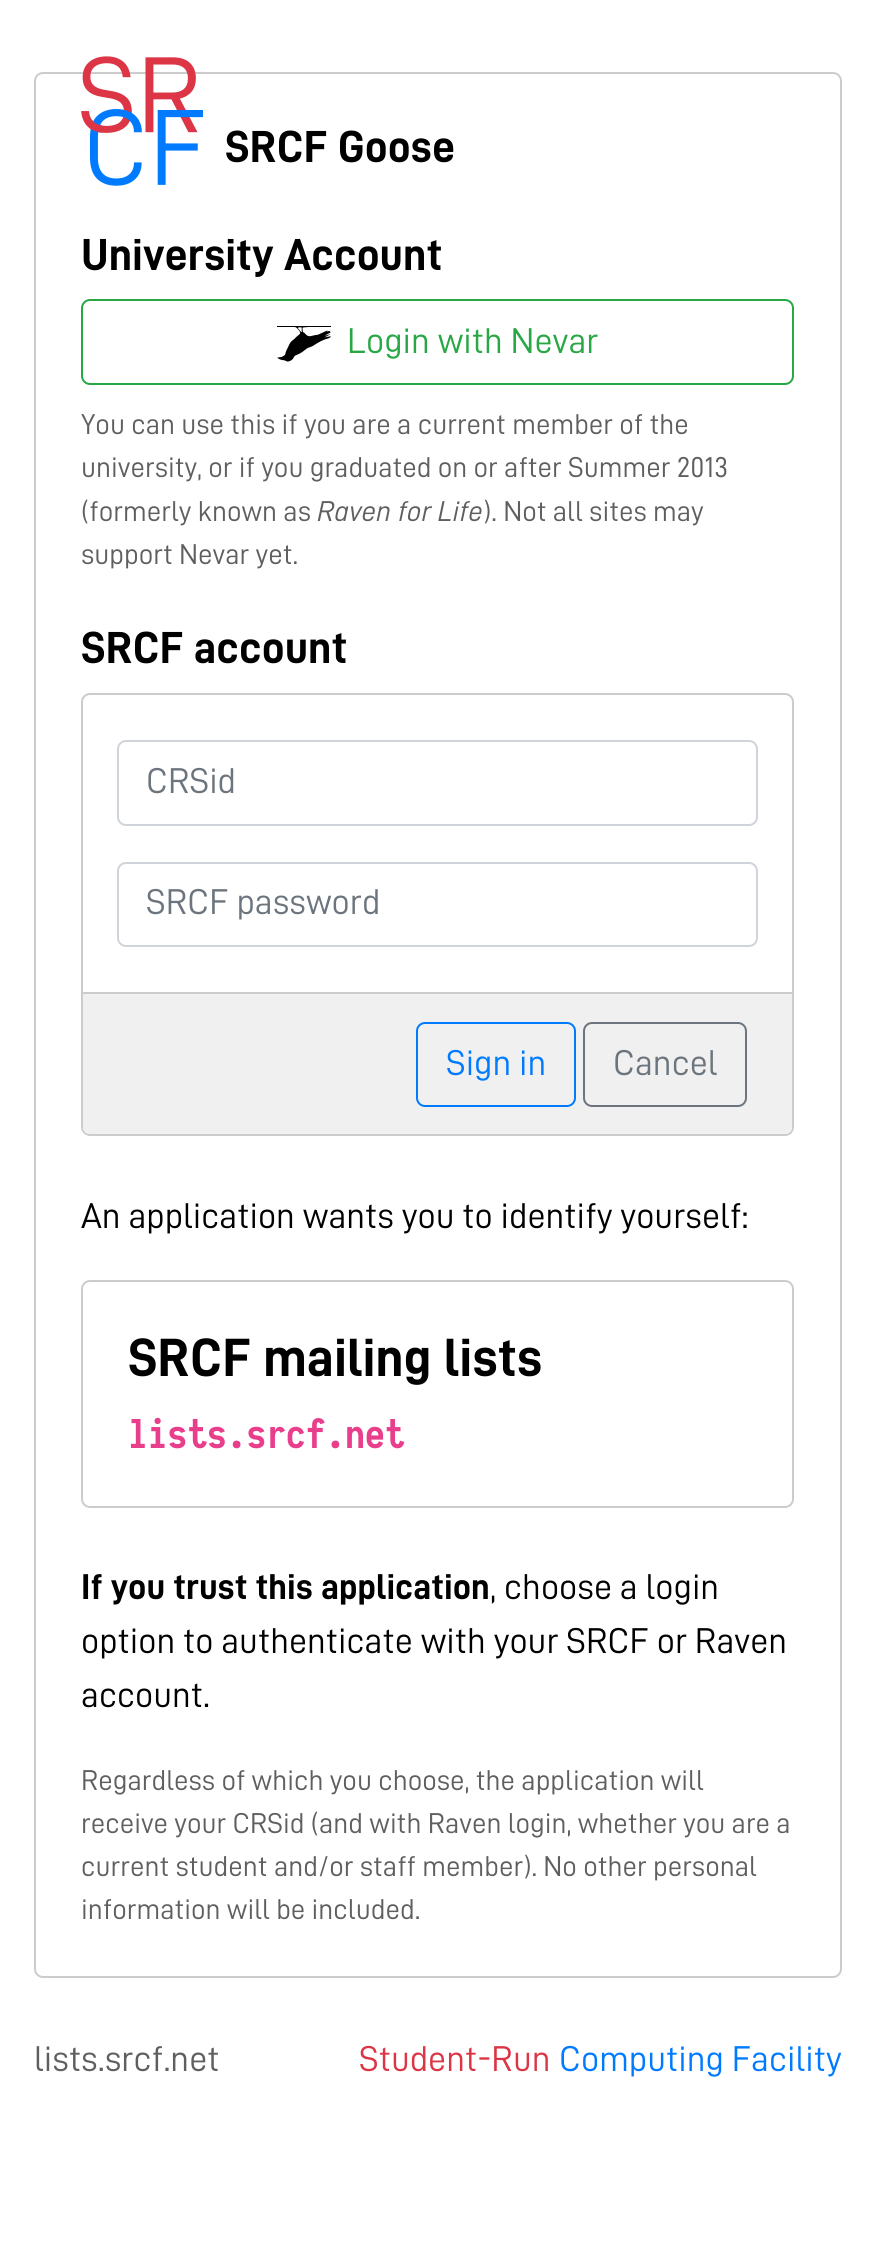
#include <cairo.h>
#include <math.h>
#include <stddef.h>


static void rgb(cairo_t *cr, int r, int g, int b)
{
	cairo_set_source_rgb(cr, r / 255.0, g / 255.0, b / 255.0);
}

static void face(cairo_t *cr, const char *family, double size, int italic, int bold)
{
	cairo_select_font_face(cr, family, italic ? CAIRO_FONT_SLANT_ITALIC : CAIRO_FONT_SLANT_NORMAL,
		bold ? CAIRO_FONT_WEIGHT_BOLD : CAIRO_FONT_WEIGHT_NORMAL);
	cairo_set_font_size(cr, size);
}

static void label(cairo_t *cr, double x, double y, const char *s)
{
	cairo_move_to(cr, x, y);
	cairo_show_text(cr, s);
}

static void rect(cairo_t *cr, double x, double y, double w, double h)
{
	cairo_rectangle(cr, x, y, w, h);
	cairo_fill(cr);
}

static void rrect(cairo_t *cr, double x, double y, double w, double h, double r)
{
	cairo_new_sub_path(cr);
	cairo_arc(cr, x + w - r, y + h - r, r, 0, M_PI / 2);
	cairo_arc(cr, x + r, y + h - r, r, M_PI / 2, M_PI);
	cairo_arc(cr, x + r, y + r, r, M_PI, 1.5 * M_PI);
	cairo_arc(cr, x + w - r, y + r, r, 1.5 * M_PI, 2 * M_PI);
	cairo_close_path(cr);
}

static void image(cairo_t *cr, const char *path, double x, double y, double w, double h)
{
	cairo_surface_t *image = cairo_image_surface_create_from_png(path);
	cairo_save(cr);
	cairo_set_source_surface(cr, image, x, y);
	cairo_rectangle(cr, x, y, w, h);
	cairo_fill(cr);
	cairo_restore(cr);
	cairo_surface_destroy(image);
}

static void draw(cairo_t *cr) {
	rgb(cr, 255, 255, 255);
	cairo_paint(cr);
	rrect(cr, 35, 73, 806, 1904, 8);
	rgb(cr, 204, 204, 204);
	cairo_stroke(cr);
	image(cr, "image0.png", 81, 56, 122, 130);
	face(cr, "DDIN", 45, 0, 1);
	rgb(cr, 0, 0, 0);
	label(cr, 225, 162, "SRCF Goose");
	label(cr, 81, 270, "University Account");
	rrect(cr, 82, 300, 711, 84, 8);
	rgb(cr, 40, 167, 69);
	cairo_stroke(cr);
	image(cr, "image1.png", 277, 326, 54, 36);
	face(cr, "DDIN", 36, 0, 0);
	label(cr, 347, 353, "Login with Nevar");
	face(cr, "DDIN", 28.8, 0, 0);
	rgb(cr, 95, 95, 95);
	label(cr, 81, 434, "You can use this if you are a current member of the");
	label(cr, 81, 477, "university, or if you graduated on or after Summer 2013");
	label(cr, 81, 521, "(formerly known as");
	face(cr, "DDIN", 28.8, 1, 0);
	label(cr, 317, 521, "Raven for Life");
	face(cr, "DDIN", 28.8, 0, 0);
	label(cr, 483, 521, "). Not all sites may");
	label(cr, 81, 564, "support Nevar yet.");
	face(cr, "DDIN", 45, 0, 1);
	rgb(cr, 0, 0, 0);
	label(cr, 81, 663, "SRCF account");
	rrect(cr, 82, 694, 711, 441, 8);
	rgb(cr, 204, 204, 204);
	cairo_stroke(cr);
	rrect(cr, 118, 741, 639, 84, 8);
	rgb(cr, 206, 212, 218);
	cairo_stroke(cr);
	face(cr, "DDIN", 36, 0, 0);
	rgb(cr, 108, 117, 125);
	label(cr, 146, 793, "CRSid");
	rrect(cr, 118, 863, 639, 83, 8);
	rgb(cr, 206, 212, 218);
	cairo_stroke(cr);
	rgb(cr, 108, 117, 125);
	label(cr, 146, 914, "SRCF password");
	rgb(cr, 240, 240, 240);
	cairo_new_path(cr);
	cairo_move_to(cr, 83, 992);
	cairo_line_to(cr, 792, 992);
	cairo_line_to(cr, 792, 1127);
	cairo_curve_to(cr, 792, 1131, 789, 1134, 785, 1134);
	cairo_line_to(cr, 90, 1134);
	cairo_curve_to(cr, 86, 1134, 83, 1131, 83, 1127);
	cairo_close_path(cr);
	cairo_fill(cr);
	rgb(cr, 204, 204, 204);
	rect(cr, 83, 992, 709, 2);
	rrect(cr, 417, 1023, 158, 83, 8);
	rgb(cr, 0, 123, 255);
	cairo_stroke(cr);
	label(cr, 446, 1075, "Sign in");
	rrect(cr, 584, 1023, 162, 83, 8);
	rgb(cr, 108, 117, 125);
	cairo_stroke(cr);
	label(cr, 613, 1075, "Cancel");
	rgb(cr, 0, 0, 0);
	label(cr, 81, 1228, "An application wants you to identify yourself:");
	rrect(cr, 82, 1281, 711, 226, 8);
	rgb(cr, 204, 204, 204);
	cairo_stroke(cr);
	face(cr, "DDIN", 54, 0, 1);
	rgb(cr, 0, 0, 0);
	label(cr, 128, 1376, "SRCF mailing lists");
	face(cr, "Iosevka", 39.5, 0, 1);
	rgb(cr, 232, 62, 140);
	label(cr, 128, 1448, "lists.srcf.net");
	face(cr, "DDIN", 36, 0, 1);
	rgb(cr, 0, 0, 0);
	label(cr, 81, 1599, "If you trust this application");
	face(cr, "DDIN", 36, 0, 0);
	label(cr, 490, 1599, ", choose a login");
	label(cr, 81, 1653, "option to authenticate with your SRCF or Raven");
	label(cr, 81, 1707, "account.");
	face(cr, "DDIN", 28.8, 0, 0);
	rgb(cr, 95, 95, 95);
	label(cr, 81, 1790, "Regardless of which you choose, the application will");
	label(cr, 81, 1833, "receive your CRSid (and with Raven login, whether you are a");
	label(cr, 81, 1876, "current student and/or staff member). No other personal");
	label(cr, 81, 1919, "information will be included.");
	face(cr, "DDIN", 36, 0, 0);
	label(cr, 34, 2071, "lists.srcf.net");
	rgb(cr, 220, 53, 69);
	label(cr, 359, 2071, "Student-Run");
	rgb(cr, 0, 123, 255);
	label(cr, 559, 2071, "Computing Facility");
}

int main(void) {
	cairo_surface_t *surface = cairo_image_surface_create(CAIRO_FORMAT_RGB24, 874, 2247);
	cairo_t *cr = cairo_create(surface);
	cairo_font_options_t *options = cairo_font_options_create();
	cairo_font_options_set_hint_metrics(options, CAIRO_HINT_METRICS_OFF);
	cairo_font_options_set_hint_style(options, CAIRO_HINT_STYLE_NONE);
	cairo_set_font_options(cr, options);
	cairo_set_miter_limit(cr, 4);
	draw(cr);
	cairo_surface_write_to_png(surface, "render.png");
	cairo_font_options_destroy(options);
	cairo_destroy(cr);
	cairo_surface_destroy(surface);
	return 0;
}
